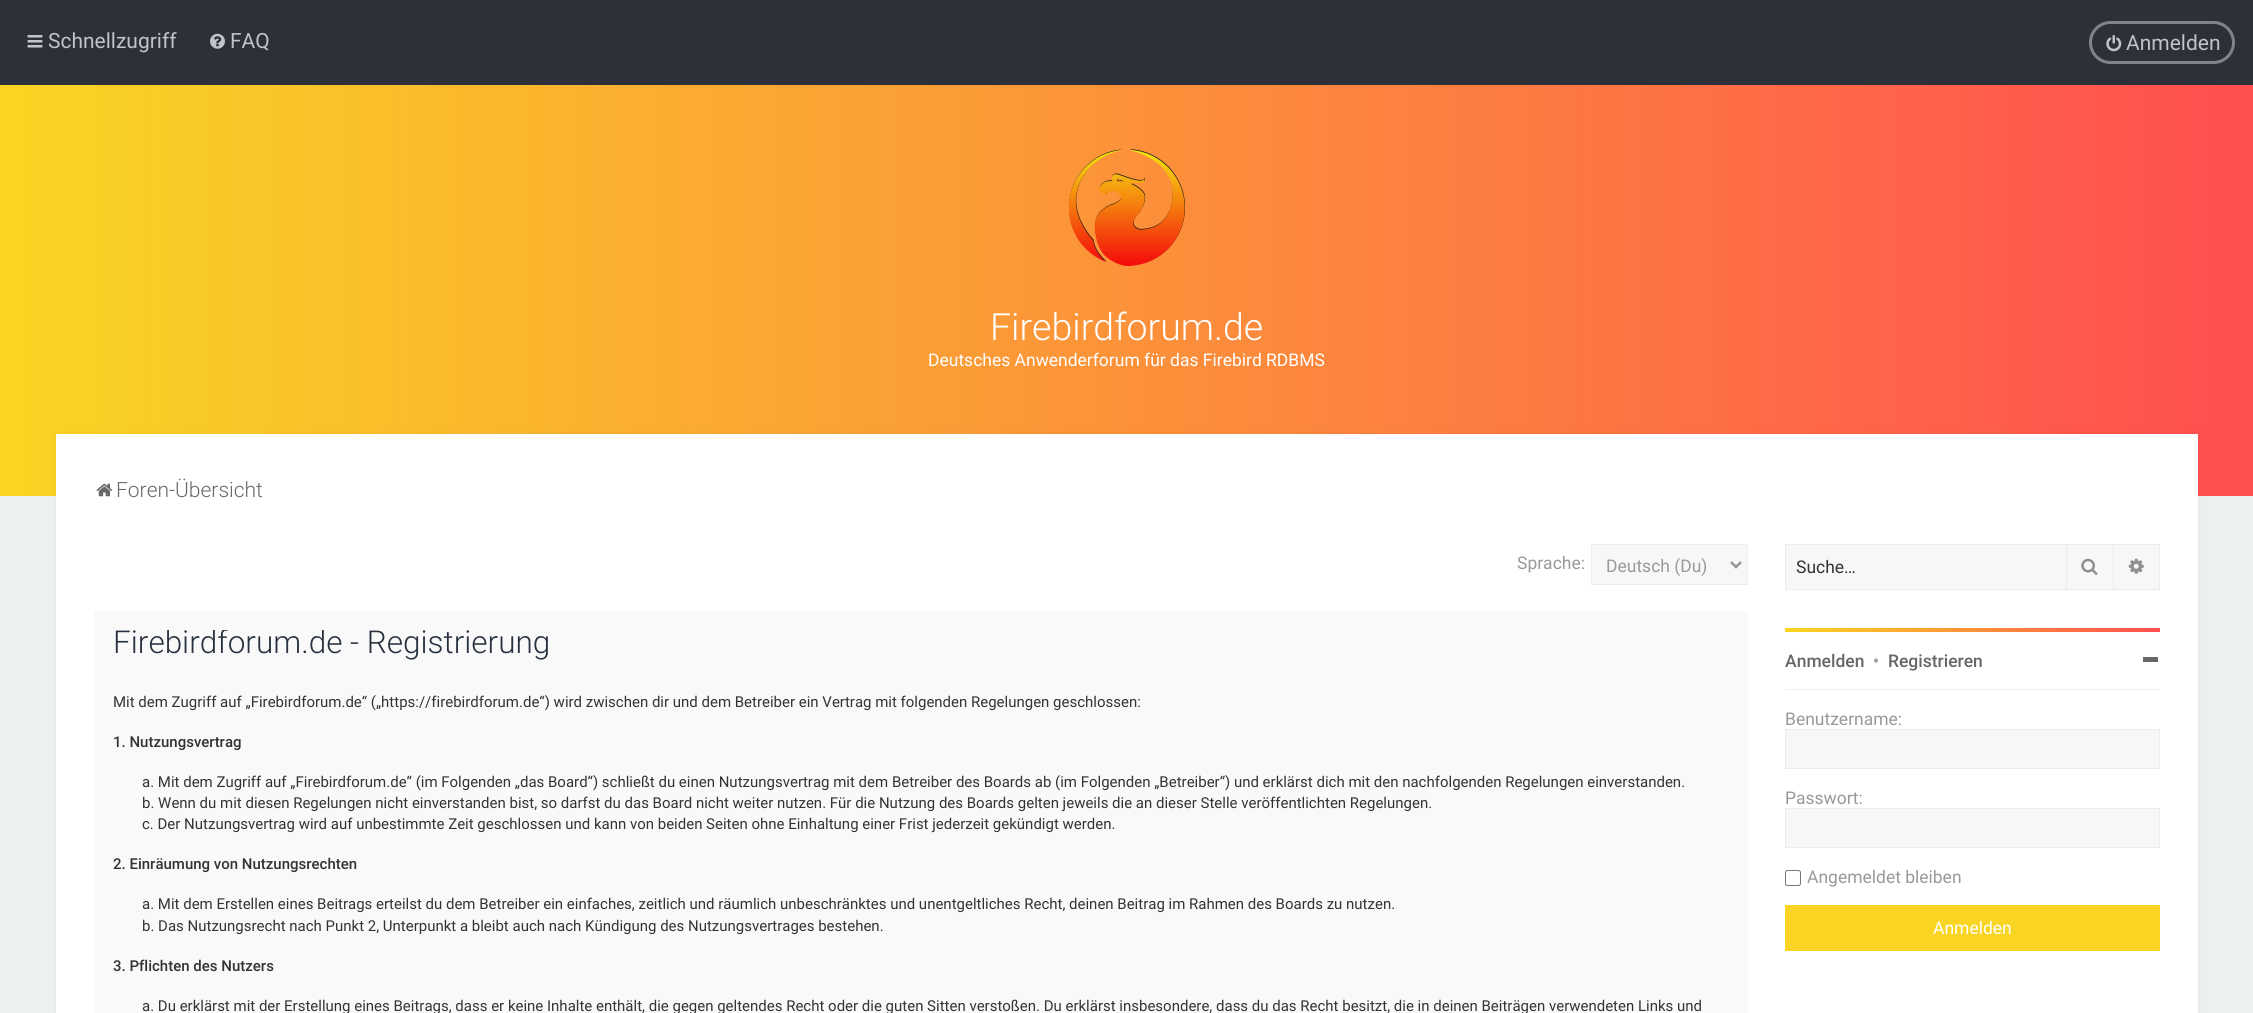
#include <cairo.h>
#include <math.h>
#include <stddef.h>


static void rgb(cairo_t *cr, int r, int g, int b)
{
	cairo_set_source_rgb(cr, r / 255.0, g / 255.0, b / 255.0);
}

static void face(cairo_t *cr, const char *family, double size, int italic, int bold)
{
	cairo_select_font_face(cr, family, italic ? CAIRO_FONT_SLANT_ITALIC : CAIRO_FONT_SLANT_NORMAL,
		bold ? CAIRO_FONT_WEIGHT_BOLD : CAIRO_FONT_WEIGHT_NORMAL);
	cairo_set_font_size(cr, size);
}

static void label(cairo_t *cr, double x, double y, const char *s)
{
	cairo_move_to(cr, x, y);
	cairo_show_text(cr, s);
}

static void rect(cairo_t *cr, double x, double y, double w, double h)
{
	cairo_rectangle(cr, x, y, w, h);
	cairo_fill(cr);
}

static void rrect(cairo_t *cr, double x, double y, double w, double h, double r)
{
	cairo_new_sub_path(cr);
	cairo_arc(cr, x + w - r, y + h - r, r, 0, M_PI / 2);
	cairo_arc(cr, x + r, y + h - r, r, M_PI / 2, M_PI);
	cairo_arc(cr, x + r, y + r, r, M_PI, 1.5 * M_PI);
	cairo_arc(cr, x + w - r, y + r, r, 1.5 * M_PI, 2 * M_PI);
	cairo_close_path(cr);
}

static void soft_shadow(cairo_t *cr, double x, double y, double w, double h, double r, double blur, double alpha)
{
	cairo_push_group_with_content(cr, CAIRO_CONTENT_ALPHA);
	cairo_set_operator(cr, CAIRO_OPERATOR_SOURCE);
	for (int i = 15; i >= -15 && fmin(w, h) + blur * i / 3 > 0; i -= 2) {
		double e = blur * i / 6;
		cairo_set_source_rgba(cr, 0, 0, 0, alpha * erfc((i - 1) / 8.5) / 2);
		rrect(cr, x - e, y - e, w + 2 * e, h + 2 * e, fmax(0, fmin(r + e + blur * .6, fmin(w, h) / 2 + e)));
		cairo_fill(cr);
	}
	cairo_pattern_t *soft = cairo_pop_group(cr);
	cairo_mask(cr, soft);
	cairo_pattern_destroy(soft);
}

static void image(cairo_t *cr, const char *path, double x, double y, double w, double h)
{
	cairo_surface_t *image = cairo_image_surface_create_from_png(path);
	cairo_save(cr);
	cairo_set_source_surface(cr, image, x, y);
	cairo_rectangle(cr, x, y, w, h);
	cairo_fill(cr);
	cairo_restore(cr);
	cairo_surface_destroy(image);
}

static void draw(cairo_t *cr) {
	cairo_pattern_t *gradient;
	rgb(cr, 236, 240, 241);
	cairo_paint(cr);
	rgb(cr, 45, 48, 57);
	rect(cr, 0, 0, 2253, 85);
	image(cr, "image0.png", 27, 35, 16, 13);
	face(cr, "Roboto", 21, 0, 0);
	rgb(cr, 190, 196, 201);
	label(cr, 48, 48, "Schnellzugriff");
	image(cr, "image1.png", 210, 33, 15, 16);
	label(cr, 230, 48, "FAQ");
	rrect(cr, 2090.5, 22.5, 143, 40, 20);
	rgb(cr, 129, 131, 136);
	cairo_set_line_width(cr, 3);
	cairo_stroke(cr);
	image(cr, "image2.png", 2106, 35, 16, 17);
	rgb(cr, 190, 196, 201);
	label(cr, 2126, 50, "Anmelden");
	gradient = cairo_pattern_create_linear(0, 291, 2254, 291);
	cairo_pattern_add_color_stop_rgba(gradient, 0.01, 0.976, 0.831, 0.137, 1);
	cairo_pattern_add_color_stop_rgba(gradient, 1, 1, 0.306, 0.314, 1);
	cairo_set_source(cr, gradient);
	cairo_pattern_destroy(gradient);
	rect(cr, 0, 85, 2253, 411);
	image(cr, "image3.png", 1068, 149, 118, 117);
	face(cr, "Roboto Light", 37.5, 0, 0);
	rgb(cr, 255, 255, 255);
	label(cr, 990, 340, "Firebirdforum.de");
	face(cr, "Roboto", 17.5, 0, 0);
	label(cr, 928, 366, "Deutsches Anwenderforum für das Firebird RDBMS");
	rgb(cr, 0, 0, 0);
	soft_shadow(cr, 56, 434, 2142, 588, 0, 3, 0.05);
	rgb(cr, 255, 255, 255);
	rect(cr, 56, 434, 2142, 579);
	image(cr, "image4.png", 96, 483, 17, 14);
	face(cr, "Roboto Light", 21, 0, 0);
	rgb(cr, 103, 103, 103);
	label(cr, 116, 497, "Foren-Übersicht");
	face(cr, "Roboto", 17.5, 0, 0);
	rgb(cr, 153, 153, 153);
	label(cr, 1517, 569, "Sprache:");
	rgb(cr, 247, 247, 247);
	cairo_rectangle(cr, 1591.5, 544.5, 156, 40);
	cairo_fill_preserve(cr);
	rgb(cr, 237, 236, 236);
	cairo_set_line_width(cr, 1);
	cairo_stroke(cr);
	cairo_new_path(cr);
	cairo_move_to(cr, 1731, 562);
	cairo_line_to(cr, 1736, 567);
	cairo_line_to(cr, 1741, 562);
	rgb(cr, 148, 148, 148);
	cairo_set_line_width(cr, 2.5);
	cairo_stroke(cr);
	rgb(cr, 153, 153, 153);
	label(cr, 1606, 572, "Deutsch (Du)");
	rgb(cr, 249, 249, 249);
	rect(cr, 94, 611, 1654, 402);
	cairo_save(cr);
	cairo_rectangle(cr, 113, 630, 1616, 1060);
	cairo_clip(cr);
	face(cr, "Roboto Light", 31.5, 0, 0);
	rgb(cr, 40, 49, 63);
	label(cr, 113, 653, "Firebirdforum.de - Registrierung");
	cairo_restore(cr);
	face(cr, "Roboto", 15, 0, 0);
	rgb(cr, 51, 51, 51);
	label(cr, 113, 707, "Mit dem Zugriff auf „Firebirdforum.de“ („https://firebirdforum.de“) wird zwischen dir und dem Betreiber ein Vertrag mit folgenden Regelungen geschlossen:");
	face(cr, "Roboto Medium", 15, 0, 0);
	label(cr, 113, 747, "1. Nutzungsvertrag");
	face(cr, "Roboto", 15, 0, 0);
	label(cr, 142, 787, "a. Mit dem Zugriff auf „Firebirdforum.de“ (im Folgenden „das Board“) schließt du einen Nutzungsvertrag mit dem Betreiber des Boards ab (im Folgenden „Betreiber“) und erklärst dich mit den nachfolgenden Regelungen einverstanden.");
	label(cr, 142, 808, "b. Wenn du mit diesen Regelungen nicht einverstanden bist, so darfst du das Board nicht weiter nutzen. Für die Nutzung des Boards gelten jeweils die an dieser Stelle veröffentlichten Regelungen.");
	label(cr, 142, 829, "c. Der Nutzungsvertrag wird auf unbestimmte Zeit geschlossen und kann von beiden Seiten ohne Einhaltung einer Frist jederzeit gekündigt werden.");
	face(cr, "Roboto Medium", 15, 0, 0);
	label(cr, 113, 869, "2. Einräumung von Nutzungsrechten");
	face(cr, "Roboto", 15, 0, 0);
	label(cr, 142, 909, "a. Mit dem Erstellen eines Beitrags erteilst du dem Betreiber ein einfaches, zeitlich und räumlich unbeschränktes und unentgeltliches Recht, deinen Beitrag im Rahmen des Boards zu nutzen.");
	label(cr, 142, 931, "b. Das Nutzungsrecht nach Punkt 2, Unterpunkt a bleibt auch nach Kündigung des Nutzungsvertrages bestehen.");
	face(cr, "Roboto Medium", 15, 0, 0);
	label(cr, 113, 971, "3. Pflichten des Nutzers");
	face(cr, "Roboto", 15, 0, 0);
	label(cr, 142, 1011, "a. Du erklärst mit der Erstellung eines Beitrags, dass er keine Inhalte enthält, die gegen geltendes Recht oder die guten Sitten verstoßen. Du erklärst insbesondere, dass du das Recht besitzt, die in deinen Beiträgen verwendeten Links und");
	rgb(cr, 247, 247, 247);
	rect(cr, 1786, 545, 280, 44);
	rgb(cr, 237, 236, 236);
	rect(cr, 1785, 544, 281, 1);
	rect(cr, 1785, 589, 281, 1);
	rect(cr, 1785, 544, 1, 46);
	face(cr, "Roboto", 17.5, 0, 0);
	rgb(cr, 51, 51, 51);
	label(cr, 1796, 573, "Suche…");
	rgb(cr, 247, 247, 247);
	cairo_rectangle(cr, 2066.5, 544.5, 47, 45);
	cairo_fill_preserve(cr);
	rgb(cr, 237, 236, 236);
	cairo_set_line_width(cr, 1);
	cairo_stroke(cr);
	image(cr, "image5.png", 2081, 558, 17, 17);
	rgb(cr, 247, 247, 247);
	rect(cr, 2114, 545, 45, 44);
	rgb(cr, 237, 236, 236);
	rect(cr, 2114, 544, 46, 1);
	rect(cr, 2159, 544, 1, 46);
	rect(cr, 2114, 589, 46, 1);
	image(cr, "image6.png", 2128, 558, 16, 16);
	gradient = cairo_pattern_create_linear(1785, 629, 2160, 629);
	cairo_pattern_add_color_stop_rgba(gradient, 0.01, 0.976, 0.831, 0.137, 1);
	cairo_pattern_add_color_stop_rgba(gradient, 1, 1, 0.306, 0.314, 1);
	cairo_set_source(cr, gradient);
	cairo_pattern_destroy(gradient);
	rect(cr, 1785, 628, 375, 4);
	face(cr, "Roboto Medium", 17.5, 0, 0);
	rgb(cr, 103, 103, 103);
	label(cr, 1785, 667, "Anmelden");
	rgb(cr, 153, 153, 153);
	label(cr, 1873, 667, "•");
	rgb(cr, 103, 103, 103);
	label(cr, 1888, 667, "Registrieren");
	rect(cr, 2143, 657, 15, 5);
	rgb(cr, 236, 240, 241);
	rect(cr, 1785, 689, 375, 1);
	face(cr, "Roboto", 17.5, 0, 0);
	rgb(cr, 153, 153, 153);
	label(cr, 1785, 725, "Benutzername:");
	rgb(cr, 247, 247, 247);
	cairo_rectangle(cr, 1785.5, 729.5, 374, 39);
	cairo_fill_preserve(cr);
	rgb(cr, 237, 236, 236);
	cairo_stroke(cr);
	rgb(cr, 153, 153, 153);
	label(cr, 1785, 804, "Passwort:");
	rgb(cr, 247, 247, 247);
	cairo_rectangle(cr, 1785.5, 808.5, 374, 39);
	cairo_fill_preserve(cr);
	rgb(cr, 237, 236, 236);
	cairo_stroke(cr);
	rrect(cr, 1785.5, 870.5, 15, 15, 2);
	rgb(cr, 118, 118, 118);
	cairo_stroke(cr);
	rgb(cr, 153, 153, 153);
	label(cr, 1807, 883, "Angemeldet bleiben");
	rgb(cr, 249, 212, 35);
	rect(cr, 1785, 905, 375, 46);
	rgb(cr, 255, 255, 255);
	label(cr, 1933, 934, "Anmelden");
}

int main(void) {
	cairo_surface_t *surface = cairo_image_surface_create(CAIRO_FORMAT_RGB24, 2253, 1013);
	cairo_t *cr = cairo_create(surface);
	cairo_font_options_t *options = cairo_font_options_create();
	cairo_font_options_set_hint_metrics(options, CAIRO_HINT_METRICS_OFF);
	cairo_font_options_set_hint_style(options, CAIRO_HINT_STYLE_NONE);
	cairo_set_font_options(cr, options);
	cairo_set_miter_limit(cr, 4);
	draw(cr);
	cairo_surface_write_to_png(surface, "render.png");
	cairo_font_options_destroy(options);
	cairo_destroy(cr);
	cairo_surface_destroy(surface);
	return 0;
}
